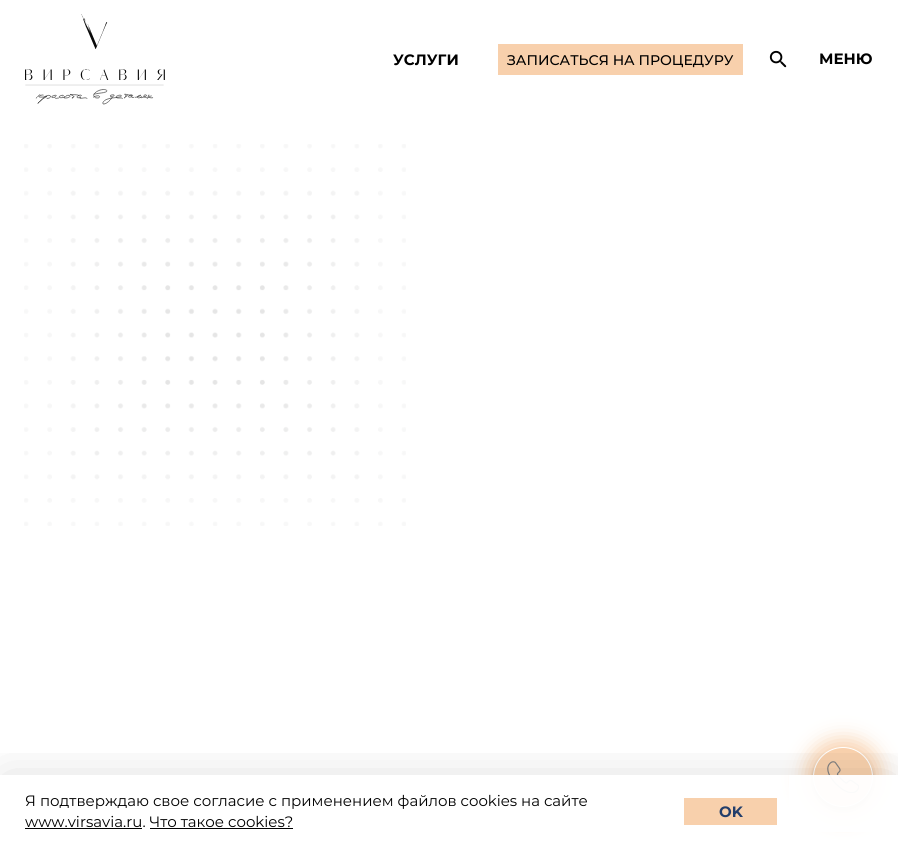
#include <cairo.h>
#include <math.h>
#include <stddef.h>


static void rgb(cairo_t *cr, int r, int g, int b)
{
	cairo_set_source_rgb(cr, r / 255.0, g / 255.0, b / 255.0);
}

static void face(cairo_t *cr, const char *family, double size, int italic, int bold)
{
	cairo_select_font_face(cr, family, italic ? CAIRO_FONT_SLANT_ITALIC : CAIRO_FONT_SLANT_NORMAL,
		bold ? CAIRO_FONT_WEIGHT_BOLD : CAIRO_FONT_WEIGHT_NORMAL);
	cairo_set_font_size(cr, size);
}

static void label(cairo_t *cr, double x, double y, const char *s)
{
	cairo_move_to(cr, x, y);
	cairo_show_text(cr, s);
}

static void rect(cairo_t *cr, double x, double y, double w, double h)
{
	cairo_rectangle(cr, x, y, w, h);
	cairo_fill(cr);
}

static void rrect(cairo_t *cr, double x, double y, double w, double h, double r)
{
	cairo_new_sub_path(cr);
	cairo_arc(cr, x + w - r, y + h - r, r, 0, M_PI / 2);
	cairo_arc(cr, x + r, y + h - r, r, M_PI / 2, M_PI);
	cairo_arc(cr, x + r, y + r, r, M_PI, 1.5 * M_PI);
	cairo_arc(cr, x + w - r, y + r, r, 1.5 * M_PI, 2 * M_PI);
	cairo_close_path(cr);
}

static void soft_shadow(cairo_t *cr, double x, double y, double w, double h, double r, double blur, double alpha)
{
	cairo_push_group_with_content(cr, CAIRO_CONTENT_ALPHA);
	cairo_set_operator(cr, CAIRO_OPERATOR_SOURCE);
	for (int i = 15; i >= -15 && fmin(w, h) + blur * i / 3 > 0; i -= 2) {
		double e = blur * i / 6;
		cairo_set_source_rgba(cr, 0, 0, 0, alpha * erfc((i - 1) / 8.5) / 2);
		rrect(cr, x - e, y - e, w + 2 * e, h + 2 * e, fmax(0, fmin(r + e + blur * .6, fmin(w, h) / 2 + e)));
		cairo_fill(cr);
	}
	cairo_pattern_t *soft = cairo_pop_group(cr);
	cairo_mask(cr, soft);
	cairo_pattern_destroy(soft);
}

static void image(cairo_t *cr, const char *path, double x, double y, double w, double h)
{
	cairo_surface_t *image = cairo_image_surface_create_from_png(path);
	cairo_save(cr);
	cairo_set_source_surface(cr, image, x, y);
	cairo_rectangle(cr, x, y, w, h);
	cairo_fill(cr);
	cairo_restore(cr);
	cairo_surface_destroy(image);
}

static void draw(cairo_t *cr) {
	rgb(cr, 255, 255, 255);
	cairo_paint(cr);
	image(cr, "image0.png", 25, 14, 140, 91);
	face(cr, "Montserrat", 15, 0, 1);
	rgb(cr, 0, 0, 0);
	label(cr, 393, 65, "УСЛУГИ");
	rgb(cr, 248, 208, 172);
	rect(cr, 498, 44, 245, 31);
	face(cr, "Montserrat Medium", 14, 0, 0);
	rgb(cr, 0, 0, 0);
	label(cr, 507, 65, "ЗАПИСАТЬСЯ НА ПРОЦЕДУРУ");
	image(cr, "image1.png", 769, 50, 18, 18);
	face(cr, "Montserrat", 15, 0, 1);
	label(cr, 819, 64, "МЕНЮ");
	image(cr, "image2.png", 24, 144, 382, 382);
	rgb(cr, 248, 208, 172);
	soft_shadow(cr, 806, 740, 75, 75, 37.5, 10, 1);
	rgb(cr, 0, 0, 0);
	soft_shadow(cr, 813, 751, 60, 60, 30, 2, 0.25);
	rgb(cr, 248, 208, 172);
	cairo_arc(cr, 843, 777, 29.5, 0, 2 * M_PI);
	cairo_fill_preserve(cr);
	rgb(cr, 255, 255, 255);
	cairo_set_line_width(cr, 1);
	cairo_stroke(cr);
	image(cr, "image3.png", 827, 761, 32, 32);
	cairo_save(cr);
	cairo_rectangle(cr, 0, 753, 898, 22);
	cairo_clip(cr);
	rgb(cr, 0, 0, 0);
	soft_shadow(cr, 5, 780, 888, 67, 0, 24, 0.15);
	cairo_restore(cr);
	cairo_set_source_rgba(cr, 1, 1, 1, 0.96);
	rect(cr, 789, 775, 109, 57);
	face(cr, "Montserrat", 15, 0, 0);
	rgb(cr, 0, 0, 0);
	label(cr, 25, 806, "Я подтверждаю свое согласие с применением файлов cookies на сайте");
	label(cr, 25, 827, "www.virsavia.ru. Что такое cookies?");
	rect(cr, 25, 828, 117, 1);
	rect(cr, 150, 828, 143, 1);
	rgb(cr, 248, 208, 172);
	rect(cr, 684, 798, 93, 27);
	face(cr, "Montserrat", 15, 0, 1);
	rgb(cr, 35, 62, 107);
	label(cr, 719, 817, "OK");
}

int main(void) {
	cairo_surface_t *surface = cairo_image_surface_create(CAIRO_FORMAT_RGB24, 898, 852);
	cairo_t *cr = cairo_create(surface);
	cairo_font_options_t *options = cairo_font_options_create();
	cairo_font_options_set_hint_metrics(options, CAIRO_HINT_METRICS_OFF);
	cairo_font_options_set_hint_style(options, CAIRO_HINT_STYLE_NONE);
	cairo_set_font_options(cr, options);
	cairo_set_miter_limit(cr, 4);
	draw(cr);
	cairo_surface_write_to_png(surface, "render.png");
	cairo_font_options_destroy(options);
	cairo_destroy(cr);
	cairo_surface_destroy(surface);
	return 0;
}
